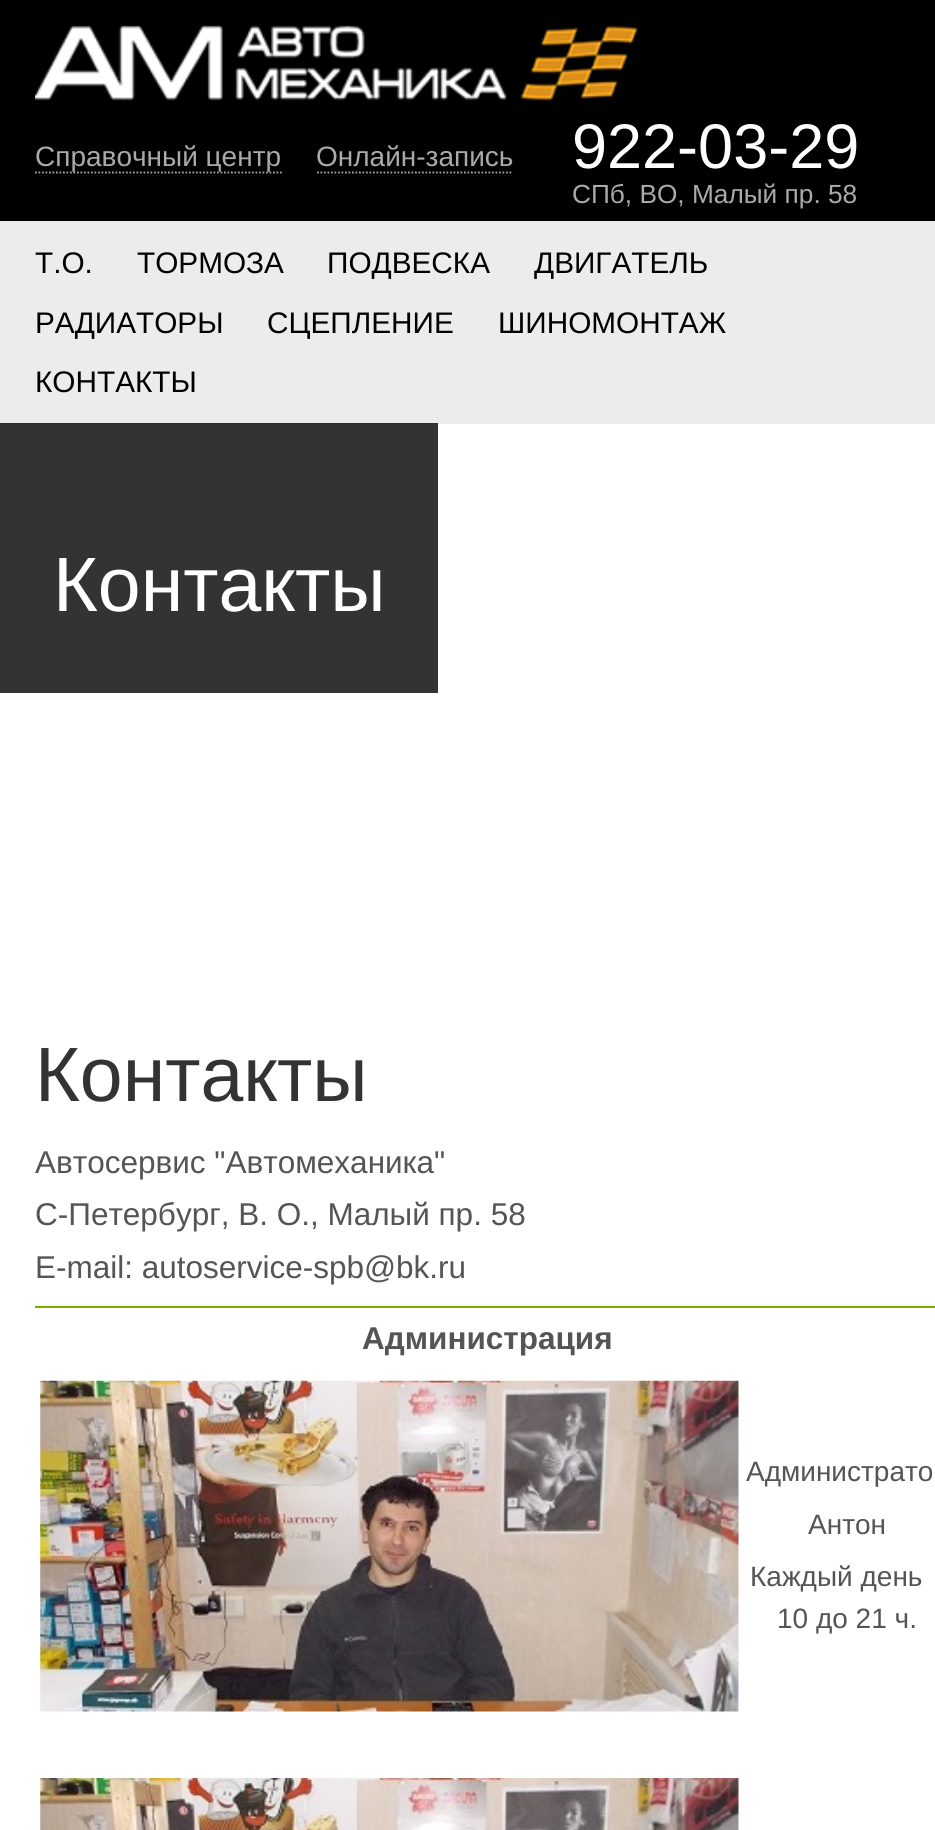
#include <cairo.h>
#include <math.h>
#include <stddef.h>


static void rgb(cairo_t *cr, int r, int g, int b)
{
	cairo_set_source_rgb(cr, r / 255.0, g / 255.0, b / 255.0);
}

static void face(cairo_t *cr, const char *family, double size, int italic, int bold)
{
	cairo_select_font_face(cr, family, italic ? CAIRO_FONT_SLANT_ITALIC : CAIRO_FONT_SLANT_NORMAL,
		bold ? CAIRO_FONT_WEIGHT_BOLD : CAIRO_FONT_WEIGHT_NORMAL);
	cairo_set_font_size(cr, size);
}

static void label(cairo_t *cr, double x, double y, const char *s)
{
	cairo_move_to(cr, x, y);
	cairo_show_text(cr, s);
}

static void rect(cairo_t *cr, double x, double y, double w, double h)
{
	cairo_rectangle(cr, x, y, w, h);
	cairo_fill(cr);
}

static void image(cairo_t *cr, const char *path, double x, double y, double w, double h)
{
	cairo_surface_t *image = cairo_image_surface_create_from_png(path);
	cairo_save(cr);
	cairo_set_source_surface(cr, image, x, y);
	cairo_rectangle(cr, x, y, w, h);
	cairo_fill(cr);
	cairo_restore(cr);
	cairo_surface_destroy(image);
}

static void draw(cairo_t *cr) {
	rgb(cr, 255, 255, 255);
	cairo_paint(cr);
	rgb(cr, 51, 51, 51);
	rect(cr, 0, 424, 438, 269);
	rgb(cr, 0, 0, 0);
	rect(cr, 0, 0, 935, 221);
	image(cr, "image0.png", 35, 25, 603, 76);
	cairo_new_path(cr);
	cairo_move_to(cr, 35, 172.5);
	cairo_line_to(cr, 282, 172.5);
	rgb(cr, 170, 170, 170);
	cairo_set_line_width(cr, 1.8);
	cairo_set_dash(cr, (double[]){1.75, 1.75}, 2, 0);
	cairo_stroke(cr);
	face(cr, "Liberation Sans", 28, 0, 0);
	label(cr, 35, 166, "Справочный центр");
	label(cr, 316, 166, "Онлайн-запись");
	cairo_new_path(cr);
	cairo_move_to(cr, 317, 172.5);
	cairo_line_to(cr, 513, 172.5);
	cairo_stroke(cr);
	face(cr, "Liberation Sans", 63, 0, 0);
	rgb(cr, 255, 255, 255);
	label(cr, 572, 168, "922-03-29");
	face(cr, "Liberation Sans", 26.25, 0, 0);
	rgb(cr, 170, 170, 170);
	label(cr, 572, 203, "СПб, ВО, Малый пр. 58");
	rgb(cr, 236, 236, 236);
	rect(cr, 0, 221, 935, 203);
	rgb(cr, 47, 47, 47);
	rect(cr, 0, 423, 438, 1);
	face(cr, "Liberation Sans", 29.75, 0, 0);
	rgb(cr, 0, 0, 0);
	label(cr, 35, 273, "Т.О.");
	label(cr, 137, 273, "ТОРМОЗА");
	label(cr, 327, 273, "ПОДВЕСКА");
	label(cr, 534, 273, "ДВИГАТЕЛЬ");
	label(cr, 35, 333, "РАДИАТОРЫ");
	label(cr, 267, 333, "СЦЕПЛЕНИЕ");
	label(cr, 498, 333, "ШИНОМОНТАЖ");
	label(cr, 35, 392, "КОНТАКТЫ");
	face(cr, "Liberation Sans", 77, 0, 0);
	rgb(cr, 255, 255, 255);
	label(cr, 53, 611, "Контакты");
	rgb(cr, 51, 51, 51);
	label(cr, 35, 1101, "Контакты");
	face(cr, "Liberation Sans", 31.5, 0, 0);
	rgb(cr, 85, 85, 85);
	label(cr, 35, 1173, "Автосервис \"Автомеханика\"");
	label(cr, 35, 1225, "С-Петербург, В. О., Малый пр. 58");
	label(cr, 35, 1278, "E-mail: autoservice-spb@bk.ru");
	rgb(cr, 119, 178, 0);
	rect(cr, 35, 1306, 900, 2);
	face(cr, "Liberation Sans", 31.5, 0, 1);
	rgb(cr, 85, 85, 85);
	label(cr, 362, 1349, "Администрация");
	image(cr, "image1.png", 40, 1380, 699, 332);
	face(cr, "Liberation Sans", 28, 0, 0);
	label(cr, 746, 1481, "Администрато");
	label(cr, 808, 1534, "Антон");
	label(cr, 750, 1586, "Каждый день");
	label(cr, 777, 1628, "10 до 21 ч.");
	image(cr, "image2.png", 40, 1778, 699, 52);
}

int main(void) {
	cairo_surface_t *surface = cairo_image_surface_create(CAIRO_FORMAT_RGB24, 935, 1830);
	cairo_t *cr = cairo_create(surface);
	cairo_font_options_t *options = cairo_font_options_create();
	cairo_font_options_set_hint_metrics(options, CAIRO_HINT_METRICS_OFF);
	cairo_font_options_set_hint_style(options, CAIRO_HINT_STYLE_NONE);
	cairo_set_font_options(cr, options);
	cairo_set_miter_limit(cr, 4);
	draw(cr);
	cairo_surface_write_to_png(surface, "render.png");
	cairo_font_options_destroy(options);
	cairo_destroy(cr);
	cairo_surface_destroy(surface);
	return 0;
}
